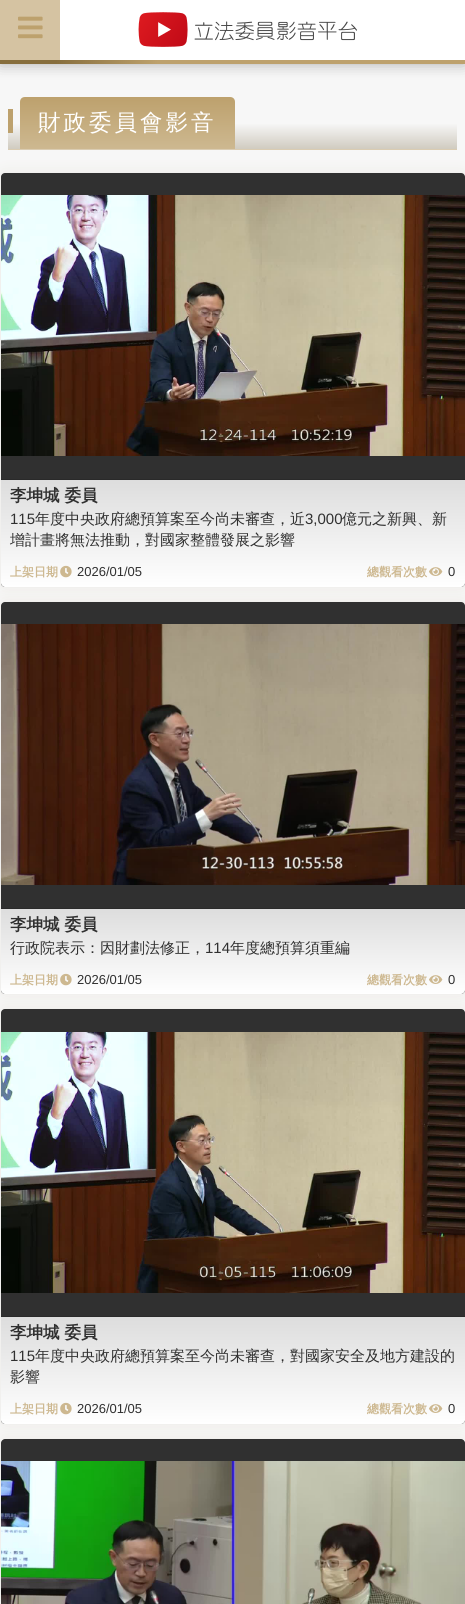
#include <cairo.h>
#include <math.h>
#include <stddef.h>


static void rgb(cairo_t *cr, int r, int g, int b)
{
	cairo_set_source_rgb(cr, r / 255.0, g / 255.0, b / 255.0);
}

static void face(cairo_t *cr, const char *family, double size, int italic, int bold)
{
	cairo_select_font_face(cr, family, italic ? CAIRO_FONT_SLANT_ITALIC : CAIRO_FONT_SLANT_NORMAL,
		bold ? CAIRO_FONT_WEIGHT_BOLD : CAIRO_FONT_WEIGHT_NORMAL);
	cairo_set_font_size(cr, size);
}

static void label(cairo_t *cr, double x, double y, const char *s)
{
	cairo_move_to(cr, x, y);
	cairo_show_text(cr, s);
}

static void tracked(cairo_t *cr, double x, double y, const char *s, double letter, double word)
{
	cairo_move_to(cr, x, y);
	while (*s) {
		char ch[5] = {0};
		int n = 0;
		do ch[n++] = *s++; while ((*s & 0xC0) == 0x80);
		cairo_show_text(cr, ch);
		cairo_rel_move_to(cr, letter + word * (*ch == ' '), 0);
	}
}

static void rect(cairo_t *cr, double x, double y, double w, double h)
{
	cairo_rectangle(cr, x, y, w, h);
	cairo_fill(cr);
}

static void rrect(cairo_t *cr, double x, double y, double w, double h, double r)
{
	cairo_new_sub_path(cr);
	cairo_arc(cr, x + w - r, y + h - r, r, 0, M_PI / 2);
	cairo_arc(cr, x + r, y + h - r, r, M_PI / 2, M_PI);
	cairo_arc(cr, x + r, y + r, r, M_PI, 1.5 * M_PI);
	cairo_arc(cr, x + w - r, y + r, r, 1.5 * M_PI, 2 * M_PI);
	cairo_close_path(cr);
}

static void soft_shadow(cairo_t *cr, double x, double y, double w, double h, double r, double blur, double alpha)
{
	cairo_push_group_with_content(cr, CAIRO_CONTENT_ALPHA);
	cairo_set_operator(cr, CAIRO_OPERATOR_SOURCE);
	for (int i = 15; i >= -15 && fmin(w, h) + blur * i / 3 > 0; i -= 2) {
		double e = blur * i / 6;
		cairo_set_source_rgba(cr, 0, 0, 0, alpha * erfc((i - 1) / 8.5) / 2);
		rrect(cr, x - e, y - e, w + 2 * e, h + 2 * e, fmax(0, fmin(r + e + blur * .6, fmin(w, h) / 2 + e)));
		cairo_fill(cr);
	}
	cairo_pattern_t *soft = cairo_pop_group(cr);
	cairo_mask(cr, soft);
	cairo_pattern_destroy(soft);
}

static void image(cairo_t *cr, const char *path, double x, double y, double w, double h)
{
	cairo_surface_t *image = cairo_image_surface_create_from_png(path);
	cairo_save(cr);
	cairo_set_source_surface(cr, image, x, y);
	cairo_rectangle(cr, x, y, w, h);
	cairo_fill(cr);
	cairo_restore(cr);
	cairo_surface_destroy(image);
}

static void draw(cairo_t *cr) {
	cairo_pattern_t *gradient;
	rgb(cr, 247, 247, 247);
	cairo_paint(cr);
	rgb(cr, 0, 0, 0);
	soft_shadow(cr, 0, 0, 465, 64, 0, 7.5, 0.3);
	gradient = cairo_pattern_create_linear(0, 32, 465, 32);
	cairo_pattern_add_color_stop_rgba(gradient, 0.12, 0.529, 0.431, 0.239, 1);
	cairo_pattern_add_color_stop_rgba(gradient, 0.34, 0.741, 0.631, 0.427, 1);
	cairo_set_source(cr, gradient);
	cairo_pattern_destroy(gradient);
	rect(cr, 0, 60, 465, 4);
	rgb(cr, 255, 255, 255);
	rect(cr, 60, 0, 405, 60);
	image(cr, "image0.png", 138, 12, 219, 35);
	rgb(cr, 213, 195, 162);
	rect(cr, 0, 0, 60, 60);
	image(cr, "image1.png", 18, 16, 25, 23);
	gradient = cairo_pattern_create_linear(233, 97, 233, 149);
	cairo_pattern_add_color_stop_rgba(gradient, 0.5, 0.969, 0.969, 0.969, 1);
	cairo_pattern_add_color_stop_rgba(gradient, 1, 0.816, 0.796, 0.753, 1);
	cairo_set_source(cr, gradient);
	cairo_pattern_destroy(gradient);
	rect(cr, 8, 124, 449, 25);
	rgb(cr, 218, 204, 178);
	rect(cr, 8, 149, 449, 1);
	rgb(cr, 189, 161, 109);
	rect(cr, 8, 109, 5, 24);
	gradient = cairo_pattern_create_linear(128, 97, 128, 149);
	cairo_pattern_add_color_stop_rgba(gradient, 0, 0.741, 0.631, 0.427, 1);
	cairo_pattern_add_color_stop_rgba(gradient, 1, 0.804, 0.722, 0.565, 1);
	cairo_set_source(cr, gradient);
	cairo_pattern_destroy(gradient);
	cairo_new_path(cr);
	cairo_move_to(cr, 25, 97);
	cairo_line_to(cr, 230, 97);
	cairo_curve_to(cr, 233, 97, 235, 99, 235, 102);
	cairo_line_to(cr, 235, 149);
	cairo_line_to(cr, 20, 149);
	cairo_line_to(cr, 20, 102);
	cairo_curve_to(cr, 20, 99, 22, 97, 25, 97);
	cairo_close_path(cr);
	cairo_fill(cr);
	face(cr, "WenQuanYi Zen Hei Medium", 22.5, 0, 0);
	rgb(cr, 255, 255, 255);
	tracked(cr, 38, 130, "財政委員會影音", 3, 0);
	rgb(cr, 135, 110, 61);
	soft_shadow(cr, 1, 173, 464, 414, 4, 7, 0.1);
	rgb(cr, 48, 48, 48);
	rrect(cr, 1, 173, 464, 414, 4);
	cairo_fill(cr);
	image(cr, "image2.png", 1, 195, 464, 261);
	rgb(cr, 42, 42, 42);
	rect(cr, 1, 479, 464, 1);
	gradient = cairo_pattern_create_linear(233, 480, 233, 587);
	cairo_pattern_add_color_stop_rgba(gradient, 0, 0.867, 0.867, 0.867, 1);
	cairo_pattern_add_color_stop_rgba(gradient, 1, 1, 1, 1, 1);
	cairo_set_source(cr, gradient);
	cairo_pattern_destroy(gradient);
	cairo_new_path(cr);
	cairo_move_to(cr, 1, 480);
	cairo_line_to(cr, 465, 480);
	cairo_line_to(cr, 465, 583);
	cairo_curve_to(cr, 465, 585, 463, 587, 461, 587);
	cairo_line_to(cr, 5, 587);
	cairo_curve_to(cr, 3, 587, 1, 585, 1, 583);
	cairo_close_path(cr);
	cairo_fill(cr);
	face(cr, "WenQuanYi Zen Hei", 16.5, 0, 1);
	rgb(cr, 48, 48, 48);
	label(cr, 10, 501, "李坤城 委員");
	face(cr, "Liberation Sans", 15, 0, 0);
	label(cr, 10, 524, "115");
	face(cr, "WenQuanYi Zen Hei Medium", 15, 0, 0);
	label(cr, 35, 524, "年度中央政府總預算案至今尚未審查，近");
	face(cr, "Liberation Sans", 15, 0, 0);
	label(cr, 305, 524, "3,000");
	face(cr, "WenQuanYi Zen Hei Medium", 15, 0, 0);
	label(cr, 342, 524, "億元之新興、新");
	label(cr, 10, 545, "增計畫將無法推動，對國家整體發展之影響");
	image(cr, "image3.png", 60, 565, 12, 13);
	face(cr, "WenQuanYi Zen Hei", 12, 0, 1);
	rgb(cr, 205, 184, 144);
	label(cr, 10, 576, "上架日期");
	face(cr, "Liberation Sans", 13, 0, 0);
	rgb(cr, 48, 48, 48);
	label(cr, 77, 576, "2026/01/05");
	image(cr, "image4.png", 429, 567, 14, 9);
	face(cr, "WenQuanYi Zen Hei", 12, 0, 1);
	rgb(cr, 205, 184, 144);
	label(cr, 367, 576, "總觀看次數");
	face(cr, "Liberation Sans", 13, 0, 0);
	rgb(cr, 48, 48, 48);
	label(cr, 448, 576, "0");
	rgb(cr, 135, 110, 61);
	soft_shadow(cr, 1, 602, 464, 392, 4, 7, 0.1);
	rgb(cr, 48, 48, 48);
	rrect(cr, 1, 602, 464, 392, 4);
	cairo_fill(cr);
	image(cr, "image5.png", 1, 624, 464, 261);
	rgb(cr, 42, 42, 42);
	rect(cr, 1, 908, 464, 1);
	gradient = cairo_pattern_create_linear(233, 909, 233, 994);
	cairo_pattern_add_color_stop_rgba(gradient, 0, 0.867, 0.867, 0.867, 1);
	cairo_pattern_add_color_stop_rgba(gradient, 1, 1, 1, 1, 1);
	cairo_set_source(cr, gradient);
	cairo_pattern_destroy(gradient);
	cairo_new_path(cr);
	cairo_move_to(cr, 1, 909);
	cairo_line_to(cr, 465, 909);
	cairo_line_to(cr, 465, 990);
	cairo_curve_to(cr, 465, 992, 463, 994, 461, 994);
	cairo_line_to(cr, 5, 994);
	cairo_curve_to(cr, 3, 994, 1, 992, 1, 990);
	cairo_close_path(cr);
	cairo_fill(cr);
	face(cr, "WenQuanYi Zen Hei", 16.5, 0, 1);
	rgb(cr, 48, 48, 48);
	label(cr, 10, 930, "李坤城 委員");
	face(cr, "WenQuanYi Zen Hei Medium", 15, 0, 0);
	label(cr, 10, 953, "行政院表示：因財劃法修正，");
	face(cr, "Liberation Sans", 15, 0, 0);
	label(cr, 205, 953, "114");
	face(cr, "WenQuanYi Zen Hei Medium", 15, 0, 0);
	label(cr, 230, 953, "年度總預算須重編");
	image(cr, "image6.png", 60, 973, 12, 13);
	face(cr, "WenQuanYi Zen Hei", 12, 0, 1);
	rgb(cr, 205, 184, 144);
	label(cr, 10, 984, "上架日期");
	face(cr, "Liberation Sans", 13, 0, 0);
	rgb(cr, 48, 48, 48);
	label(cr, 77, 984, "2026/01/05");
	image(cr, "image7.png", 429, 975, 14, 9);
	face(cr, "WenQuanYi Zen Hei", 12, 0, 1);
	rgb(cr, 205, 184, 144);
	label(cr, 367, 984, "總觀看次數");
	face(cr, "Liberation Sans", 13, 0, 0);
	rgb(cr, 48, 48, 48);
	label(cr, 448, 984, "0");
	rgb(cr, 135, 110, 61);
	soft_shadow(cr, 1, 1009, 464, 415, 4, 7, 0.1);
	rgb(cr, 48, 48, 48);
	rrect(cr, 1, 1009, 464, 415, 4);
	cairo_fill(cr);
	image(cr, "image8.png", 1, 1032, 464, 261);
	rgb(cr, 42, 42, 42);
	rect(cr, 1, 1316, 464, 1);
	gradient = cairo_pattern_create_linear(233, 1317, 233, 1424);
	cairo_pattern_add_color_stop_rgba(gradient, 0, 0.867, 0.867, 0.867, 1);
	cairo_pattern_add_color_stop_rgba(gradient, 1, 1, 1, 1, 1);
	cairo_set_source(cr, gradient);
	cairo_pattern_destroy(gradient);
	cairo_new_path(cr);
	cairo_move_to(cr, 1, 1317);
	cairo_line_to(cr, 465, 1317);
	cairo_line_to(cr, 465, 1420);
	cairo_curve_to(cr, 465, 1422, 463, 1424, 461, 1424);
	cairo_line_to(cr, 5, 1424);
	cairo_curve_to(cr, 3, 1424, 1, 1422, 1, 1420);
	cairo_close_path(cr);
	cairo_fill(cr);
	face(cr, "WenQuanYi Zen Hei", 16.5, 0, 1);
	rgb(cr, 48, 48, 48);
	label(cr, 10, 1338, "李坤城 委員");
	face(cr, "Liberation Sans", 15, 0, 0);
	label(cr, 10, 1361, "115");
	face(cr, "WenQuanYi Zen Hei Medium", 15, 0, 0);
	label(cr, 35, 1361, "年度中央政府總預算案至今尚未審查，對國家安全及地方建設的");
	label(cr, 10, 1382, "影響");
	image(cr, "image3.png", 60, 1402, 12, 13);
	face(cr, "WenQuanYi Zen Hei", 12, 0, 1);
	rgb(cr, 205, 184, 144);
	label(cr, 10, 1413, "上架日期");
	face(cr, "Liberation Sans", 13, 0, 0);
	rgb(cr, 48, 48, 48);
	label(cr, 77, 1413, "2026/01/05");
	image(cr, "image4.png", 429, 1404, 14, 9);
	face(cr, "WenQuanYi Zen Hei", 12, 0, 1);
	rgb(cr, 205, 184, 144);
	label(cr, 367, 1413, "總觀看次數");
	face(cr, "Liberation Sans", 13, 0, 0);
	rgb(cr, 48, 48, 48);
	label(cr, 448, 1413, "0");
	rgb(cr, 135, 110, 61);
	soft_shadow(cr, 1, 1439, 464, 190, 4, 7, 0.1);
	rgb(cr, 48, 48, 48);
	cairo_new_path(cr);
	cairo_move_to(cr, 5, 1439);
	cairo_line_to(cr, 461, 1439);
	cairo_curve_to(cr, 463, 1439, 465, 1441, 465, 1443);
	cairo_line_to(cr, 465, 1604);
	cairo_line_to(cr, 1, 1604);
	cairo_line_to(cr, 1, 1443);
	cairo_curve_to(cr, 1, 1441, 3, 1439, 5, 1439);
	cairo_close_path(cr);
	cairo_fill(cr);
	image(cr, "image9.png", 1, 1461, 464, 143);
}

int main(void) {
	cairo_surface_t *surface = cairo_image_surface_create(CAIRO_FORMAT_RGB24, 465, 1604);
	cairo_t *cr = cairo_create(surface);
	cairo_font_options_t *options = cairo_font_options_create();
	cairo_font_options_set_hint_metrics(options, CAIRO_HINT_METRICS_OFF);
	cairo_font_options_set_hint_style(options, CAIRO_HINT_STYLE_NONE);
	cairo_set_font_options(cr, options);
	cairo_set_miter_limit(cr, 4);
	draw(cr);
	cairo_surface_write_to_png(surface, "render.png");
	cairo_font_options_destroy(options);
	cairo_destroy(cr);
	cairo_surface_destroy(surface);
	return 0;
}
